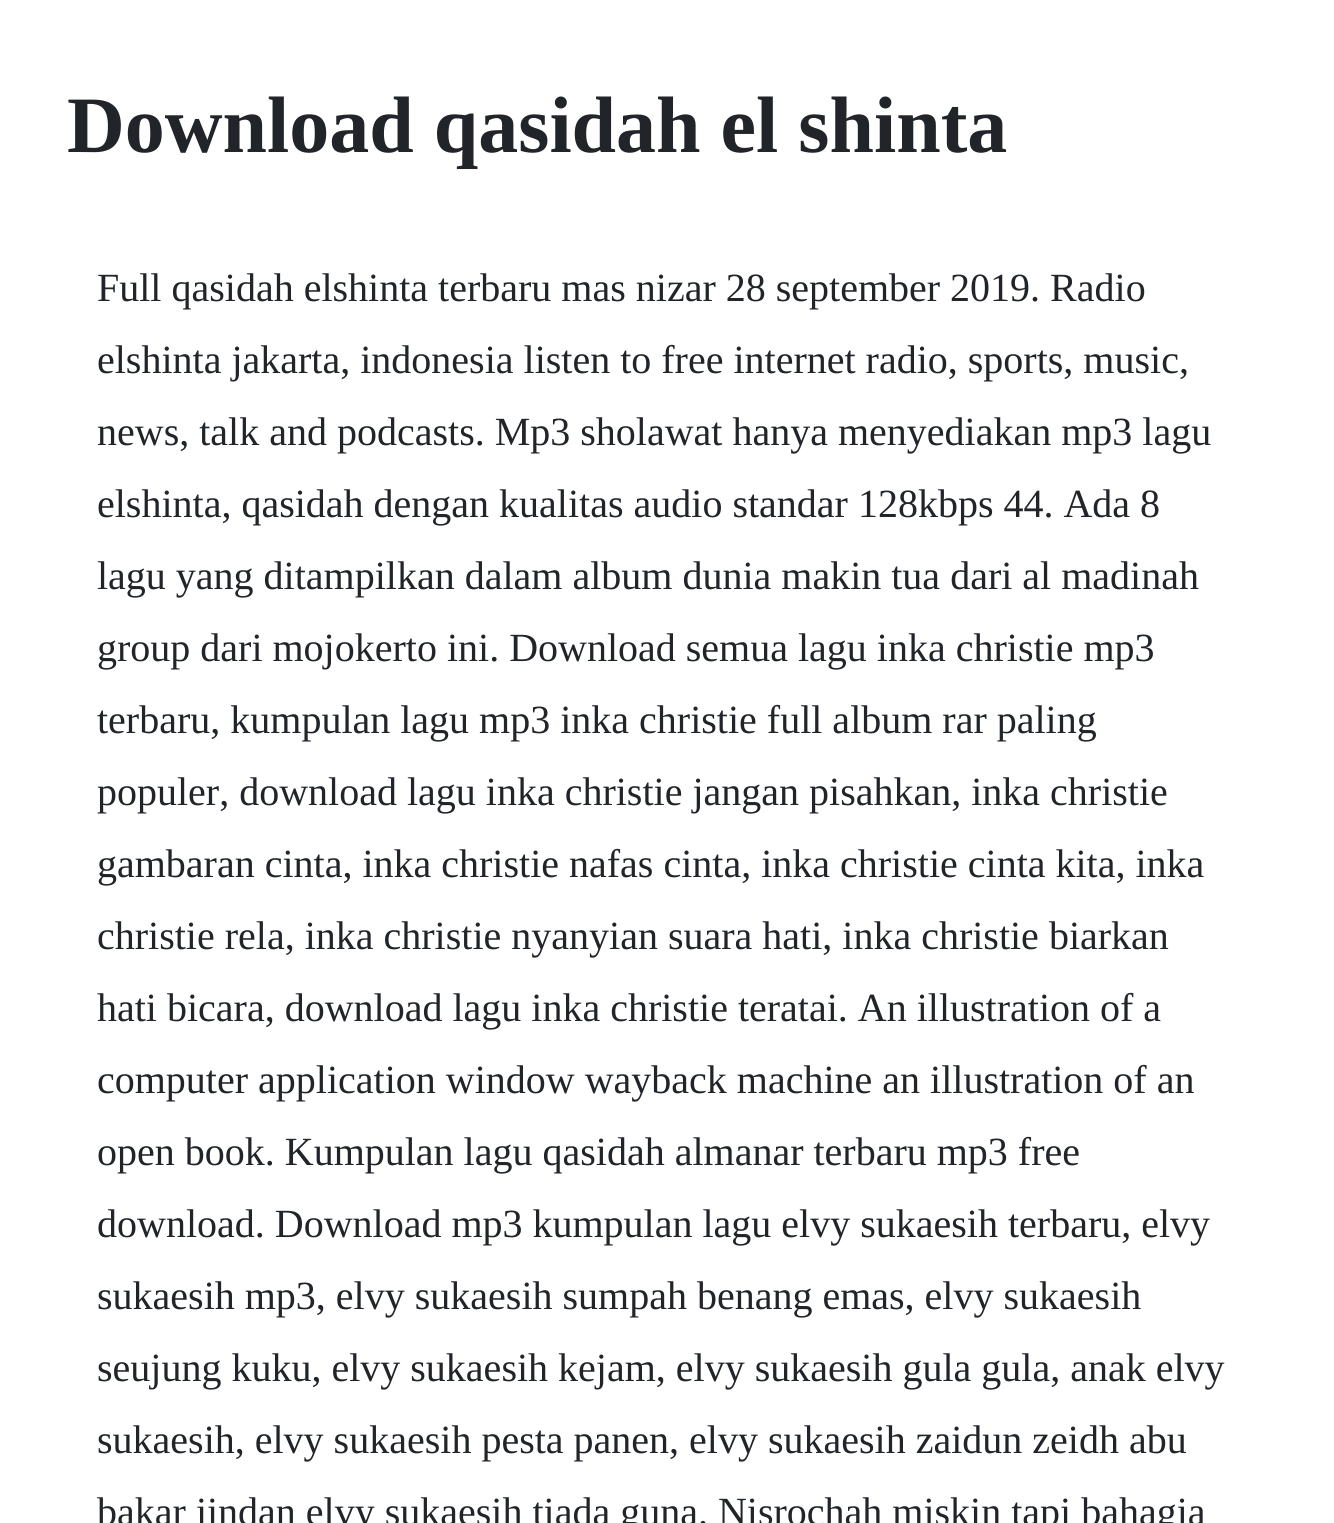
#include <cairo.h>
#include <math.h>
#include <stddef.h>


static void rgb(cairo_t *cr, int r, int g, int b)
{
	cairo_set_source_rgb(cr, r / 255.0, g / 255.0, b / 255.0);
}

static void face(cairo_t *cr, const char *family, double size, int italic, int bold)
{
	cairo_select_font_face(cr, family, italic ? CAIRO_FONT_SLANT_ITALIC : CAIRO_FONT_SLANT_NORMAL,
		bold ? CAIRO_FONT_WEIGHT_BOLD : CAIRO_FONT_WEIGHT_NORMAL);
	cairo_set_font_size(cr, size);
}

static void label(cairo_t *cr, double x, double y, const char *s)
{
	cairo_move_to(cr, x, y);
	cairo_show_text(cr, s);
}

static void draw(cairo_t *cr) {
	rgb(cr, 255, 255, 255);
	cairo_paint(cr);
	face(cr, "Liberation Serif", 80, 0, 1);
	rgb(cr, 33, 37, 41);
	label(cr, 67, 152, "Download qasidah el shinta");
	face(cr, "Liberation Serif", 40, 0, 0);
	label(cr, 97, 301, "Full qasidah elshinta terbaru mas nizar 28 september 2019. Radio");
	label(cr, 97, 373, "elshinta jakarta, indonesia listen to free internet radio, sports, music,");
	label(cr, 97, 445, "news, talk and podcasts. Mp3 sholawat hanya menyediakan mp3 lagu");
	label(cr, 97, 517, "elshinta, qasidah dengan kualitas audio standar 128kbps 44. Ada 8");
	label(cr, 97, 589, "lagu yang ditampilkan dalam album dunia makin tua dari al madinah");
	label(cr, 97, 661, "group dari mojokerto ini. Download semua lagu inka christie mp3");
	label(cr, 97, 733, "terbaru, kumpulan lagu mp3 inka christie full album rar paling");
	label(cr, 97, 805, "populer, download lagu inka christie jangan pisahkan, inka christie");
	label(cr, 97, 877, "gambaran cinta, inka christie nafas cinta, inka christie cinta kita, inka");
	label(cr, 97, 949, "christie rela, inka christie nyanyian suara hati, inka christie biarkan");
	label(cr, 97, 1021, "hati bicara, download lagu inka christie teratai. An illustration of a");
	label(cr, 97, 1093, "computer application window wayback machine an illustration of an");
	label(cr, 97, 1165, "open book. Kumpulan lagu qasidah almanar terbaru mp3 free");
	label(cr, 97, 1237, "download. Download mp3 kumpulan lagu elvy sukaesih terbaru, elvy");
	label(cr, 97, 1309, "sukaesih mp3, elvy sukaesih sumpah benang emas, elvy sukaesih");
	label(cr, 97, 1381, "seujung kuku, elvy sukaesih kejam, elvy sukaesih gula gula, anak elvy");
	label(cr, 97, 1453, "sukaesih, elvy sukaesih pesta panen, elvy sukaesih zaidun zeidh abu");
	label(cr, 97, 1525, "bakar jindan elvy sukaesih tiada guna. Nisrochah miskin tapi bahagia");
}

int main(void) {
	cairo_surface_t *surface = cairo_image_surface_create(CAIRO_FORMAT_RGB24, 1334, 1523);
	cairo_t *cr = cairo_create(surface);
	cairo_font_options_t *options = cairo_font_options_create();
	cairo_font_options_set_hint_metrics(options, CAIRO_HINT_METRICS_OFF);
	cairo_font_options_set_hint_style(options, CAIRO_HINT_STYLE_NONE);
	cairo_set_font_options(cr, options);
	cairo_set_miter_limit(cr, 4);
	draw(cr);
	cairo_surface_write_to_png(surface, "render.png");
	cairo_font_options_destroy(options);
	cairo_destroy(cr);
	cairo_surface_destroy(surface);
	return 0;
}
